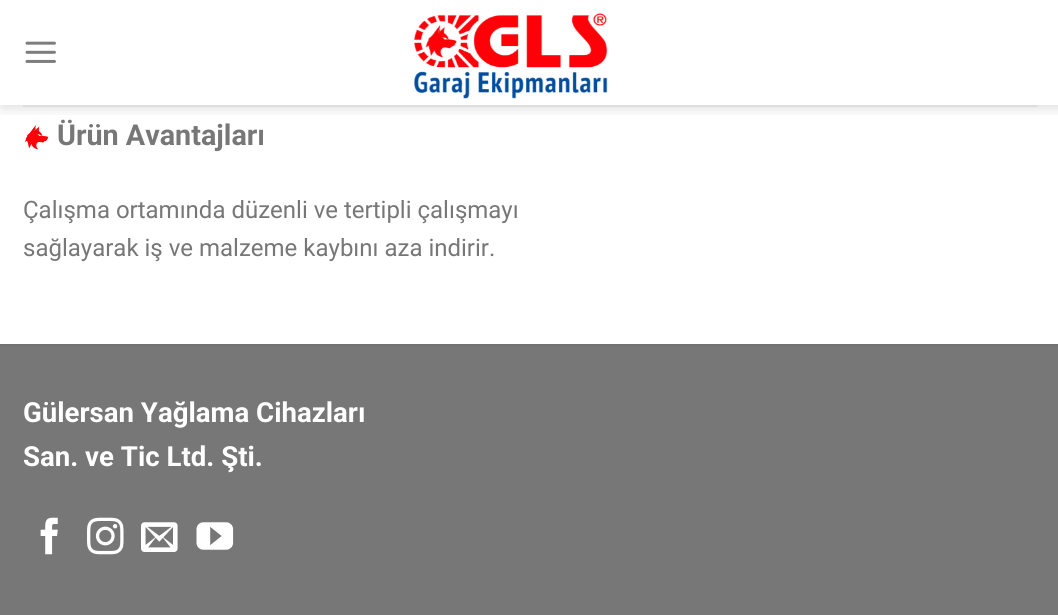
#include <cairo.h>
#include <math.h>
#include <stddef.h>


static void rgb(cairo_t *cr, int r, int g, int b)
{
	cairo_set_source_rgb(cr, r / 255.0, g / 255.0, b / 255.0);
}

static void face(cairo_t *cr, const char *family, double size, int italic, int bold)
{
	cairo_select_font_face(cr, family, italic ? CAIRO_FONT_SLANT_ITALIC : CAIRO_FONT_SLANT_NORMAL,
		bold ? CAIRO_FONT_WEIGHT_BOLD : CAIRO_FONT_WEIGHT_NORMAL);
	cairo_set_font_size(cr, size);
}

static void label(cairo_t *cr, double x, double y, const char *s)
{
	cairo_move_to(cr, x, y);
	cairo_show_text(cr, s);
}

static void rect(cairo_t *cr, double x, double y, double w, double h)
{
	cairo_rectangle(cr, x, y, w, h);
	cairo_fill(cr);
}

static void rrect(cairo_t *cr, double x, double y, double w, double h, double r)
{
	cairo_new_sub_path(cr);
	cairo_arc(cr, x + w - r, y + h - r, r, 0, M_PI / 2);
	cairo_arc(cr, x + r, y + h - r, r, M_PI / 2, M_PI);
	cairo_arc(cr, x + r, y + r, r, M_PI, 1.5 * M_PI);
	cairo_arc(cr, x + w - r, y + r, r, 1.5 * M_PI, 2 * M_PI);
	cairo_close_path(cr);
}

static void soft_shadow(cairo_t *cr, double x, double y, double w, double h, double r, double blur, double alpha)
{
	cairo_push_group_with_content(cr, CAIRO_CONTENT_ALPHA);
	cairo_set_operator(cr, CAIRO_OPERATOR_SOURCE);
	for (int i = 15; i >= -15 && fmin(w, h) + blur * i / 3 > 0; i -= 2) {
		double e = blur * i / 6;
		cairo_set_source_rgba(cr, 0, 0, 0, alpha * erfc((i - 1) / 8.5) / 2);
		rrect(cr, x - e, y - e, w + 2 * e, h + 2 * e, fmax(0, fmin(r + e + blur * .6, fmin(w, h) / 2 + e)));
		cairo_fill(cr);
	}
	cairo_pattern_t *soft = cairo_pop_group(cr);
	cairo_mask(cr, soft);
	cairo_pattern_destroy(soft);
}

static void image(cairo_t *cr, const char *path, double x, double y, double w, double h)
{
	cairo_surface_t *image = cairo_image_surface_create_from_png(path);
	cairo_save(cr);
	cairo_set_source_surface(cr, image, x, y);
	cairo_rectangle(cr, x, y, w, h);
	cairo_fill(cr);
	cairo_restore(cr);
	cairo_surface_destroy(image);
}

static void draw(cairo_t *cr) {
	rgb(cr, 255, 255, 255);
	cairo_paint(cr);
	image(cr, "image2.png", 25, 125, 24, 25);
	cairo_save(cr);
	cairo_rectangle(cr, 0, 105, 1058, 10);
	cairo_clip(cr);
	rgb(cr, 0, 0, 0);
	soft_shadow(cr, 2, 2, 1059, 105, 0, 7.5, 0.15);
	cairo_restore(cr);
	image(cr, "image0.png", 25, 41, 31, 22);
	image(cr, "image1.png", 414, 13, 194, 86);
	rgb(cr, 222, 222, 222);
	rect(cr, 23, 105, 1014, 2);
	face(cr, "Roboto", 28.75, 0, 1);
	rgb(cr, 119, 119, 119);
	label(cr, 57, 145, "Ürün Avantajları");
	face(cr, "Roboto", 24, 0, 0);
	label(cr, 23, 218, "Çalışma ortamında düzenli ve tertipli çalışmayı");
	label(cr, 23, 256, "sağlayarak iş ve malzeme kaybını aza indirir.");
	rect(cr, 0, 346, 1058, 269);
	rgb(cr, 113, 113, 113);
	rect(cr, 0, 344, 1058, 2);
	face(cr, "Roboto", 27.6, 0, 1);
	rgb(cr, 255, 255, 255);
	label(cr, 23, 422, "Gülersan Yağlama Cihazları");
	label(cr, 23, 466, "San. ve Tic Ltd. Şti.");
	image(cr, "image3.png", 40, 517, 18, 38);
	image(cr, "image4.png", 87, 517, 37, 38);
	image(cr, "image5.png", 141, 522, 37, 30);
	image(cr, "image6.png", 196, 522, 38, 28);
}

int main(void) {
	cairo_surface_t *surface = cairo_image_surface_create(CAIRO_FORMAT_RGB24, 1058, 615);
	cairo_t *cr = cairo_create(surface);
	cairo_font_options_t *options = cairo_font_options_create();
	cairo_font_options_set_hint_metrics(options, CAIRO_HINT_METRICS_OFF);
	cairo_font_options_set_hint_style(options, CAIRO_HINT_STYLE_NONE);
	cairo_set_font_options(cr, options);
	cairo_set_miter_limit(cr, 4);
	draw(cr);
	cairo_surface_write_to_png(surface, "render.png");
	cairo_font_options_destroy(options);
	cairo_destroy(cr);
	cairo_surface_destroy(surface);
	return 0;
}
